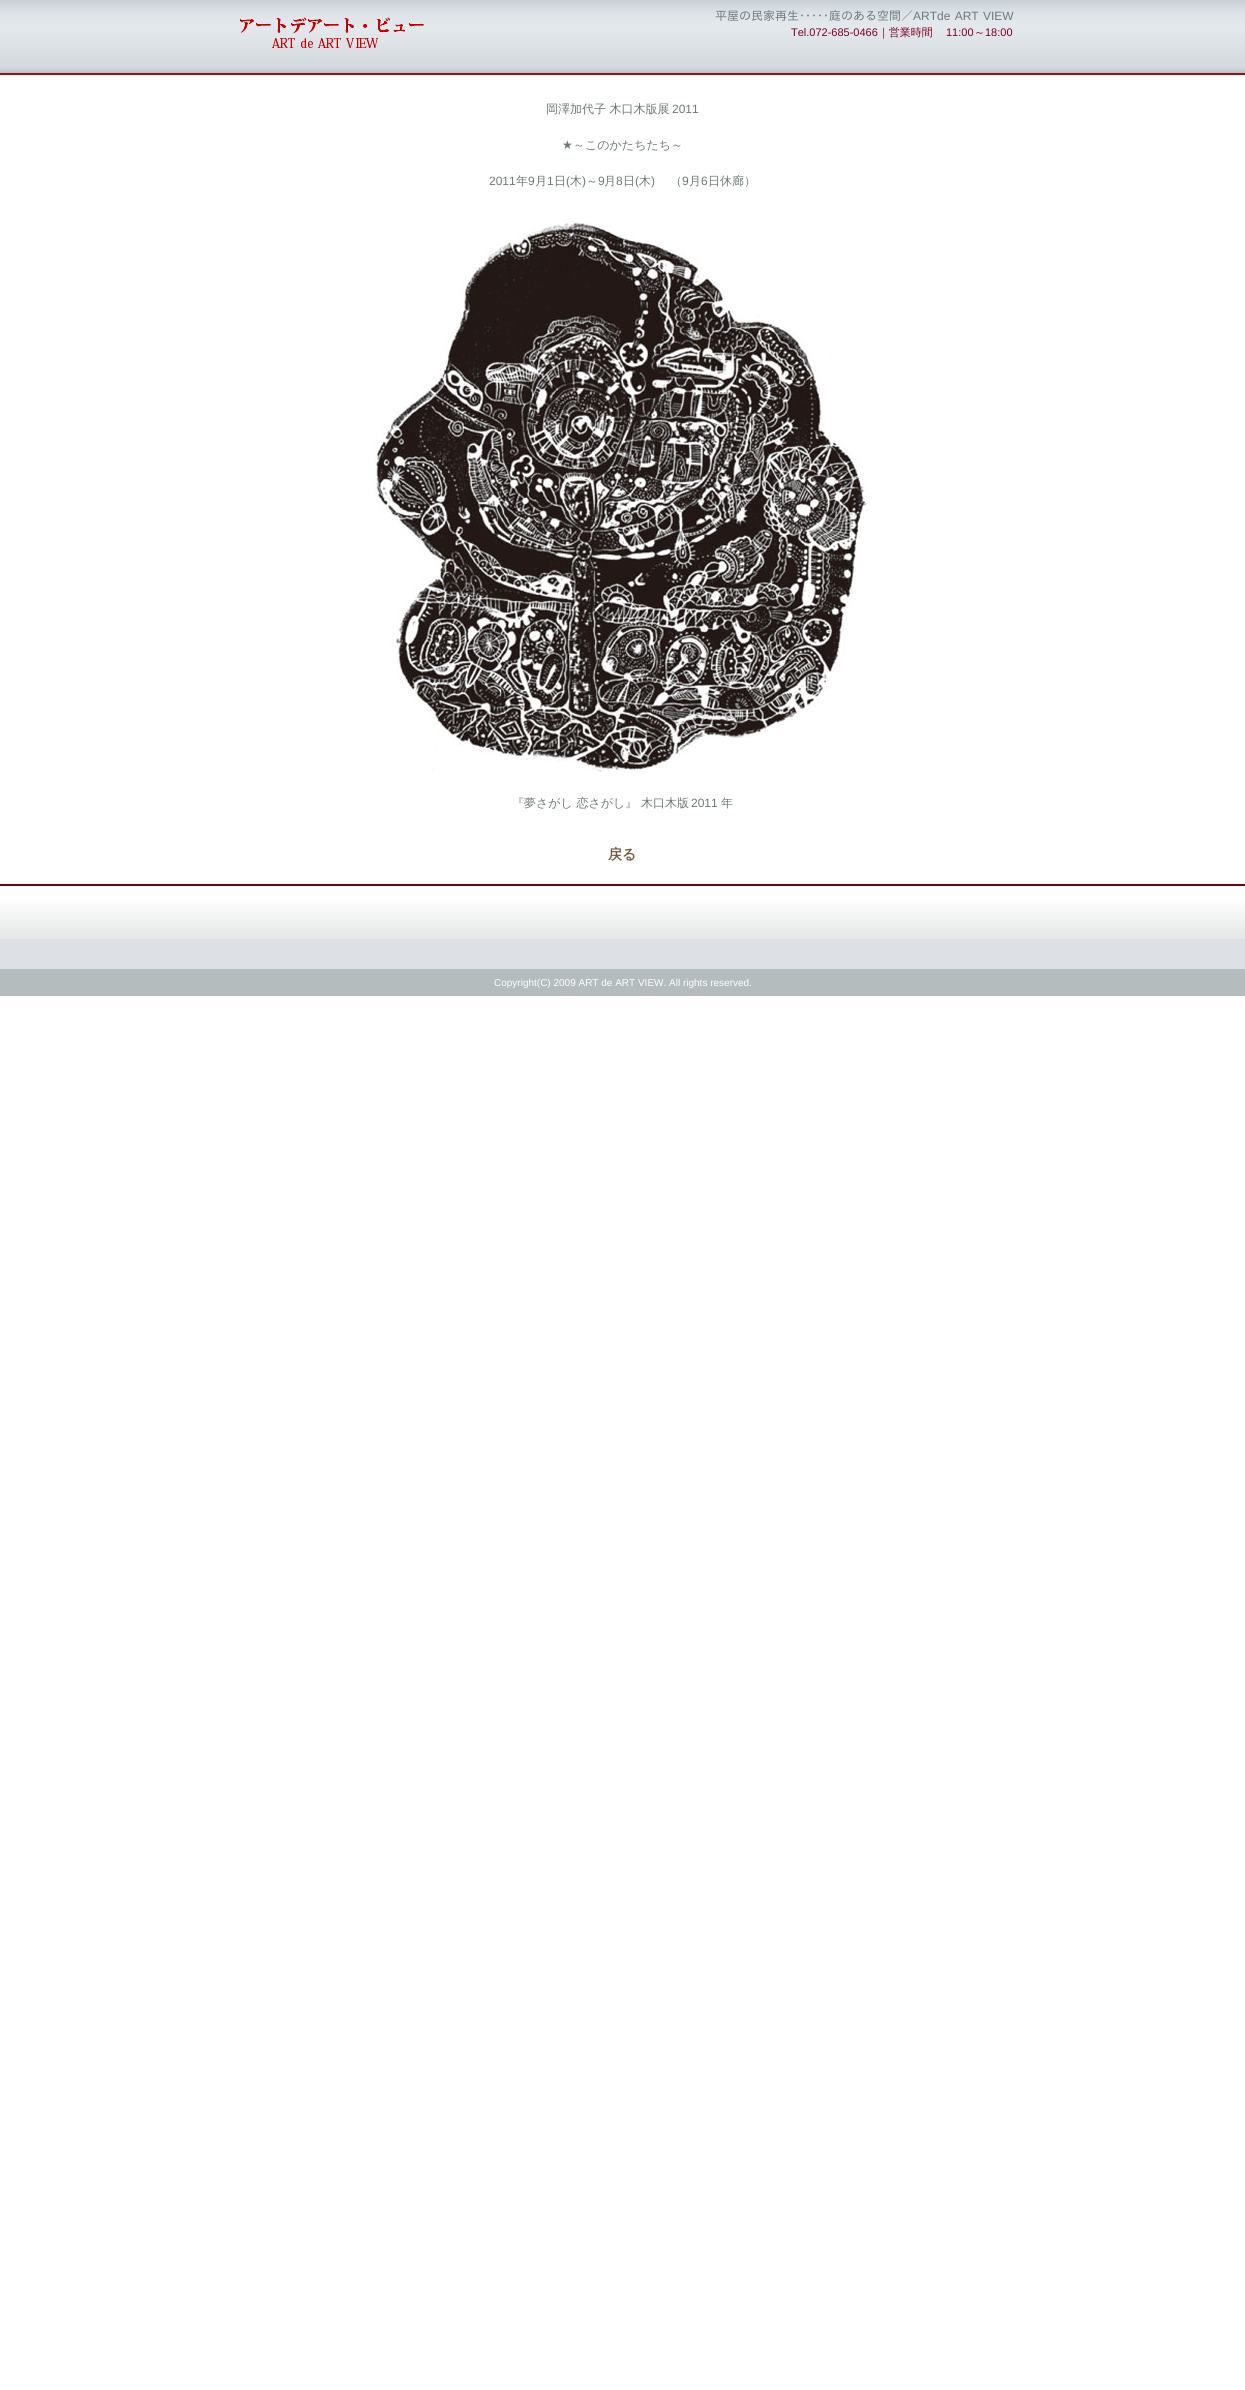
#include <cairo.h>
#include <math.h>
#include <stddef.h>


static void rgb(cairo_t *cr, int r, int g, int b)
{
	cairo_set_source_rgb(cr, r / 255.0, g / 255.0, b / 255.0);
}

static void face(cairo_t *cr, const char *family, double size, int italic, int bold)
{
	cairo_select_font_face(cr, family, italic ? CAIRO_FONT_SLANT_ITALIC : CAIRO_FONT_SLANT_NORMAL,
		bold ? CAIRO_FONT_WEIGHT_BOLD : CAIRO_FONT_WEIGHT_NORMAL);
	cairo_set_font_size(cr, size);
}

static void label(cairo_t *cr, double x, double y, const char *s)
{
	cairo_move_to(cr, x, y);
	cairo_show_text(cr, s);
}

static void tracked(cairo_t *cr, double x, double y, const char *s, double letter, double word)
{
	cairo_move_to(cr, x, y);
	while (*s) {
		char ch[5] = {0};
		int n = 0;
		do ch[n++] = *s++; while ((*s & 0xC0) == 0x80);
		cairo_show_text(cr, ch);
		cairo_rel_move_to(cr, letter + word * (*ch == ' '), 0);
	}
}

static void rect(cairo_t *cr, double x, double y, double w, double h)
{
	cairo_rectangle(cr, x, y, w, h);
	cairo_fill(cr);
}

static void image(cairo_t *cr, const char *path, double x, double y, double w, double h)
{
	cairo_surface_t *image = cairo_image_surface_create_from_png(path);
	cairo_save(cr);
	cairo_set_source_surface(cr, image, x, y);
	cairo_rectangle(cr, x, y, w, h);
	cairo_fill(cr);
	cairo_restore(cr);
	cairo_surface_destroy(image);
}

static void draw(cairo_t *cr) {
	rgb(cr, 255, 255, 255);
	cairo_paint(cr);
	image(cr, "image0.png", 0, 0, 1245, 75);
	image(cr, "image1.png", 240, 17, 184, 31);
	face(cr, "IPAGothic", 12, 0, 0);
	rgb(cr, 109, 121, 121);
	label(cr, 715, 20, "平屋の民家再生･････庭のある空間／");
	face(cr, "Liberation Sans", 12, 0, 0);
	tracked(cr, 913, 20, "ARTde ART VIEW", 0, 1);
	face(cr, "Liberation Sans", 11, 0, 0);
	rgb(cr, 126, 0, 23);
	label(cr, 791, 36, "Tel.072-685-0466");
	face(cr, "WenQuanYi Zen Hei Medium", 11, 0, 0);
	label(cr, 878, 36, "｜営業時間");
	face(cr, "Liberation Sans", 11, 0, 0);
	label(cr, 946, 36, "11:00");
	face(cr, "WenQuanYi Zen Hei Medium", 11, 0, 0);
	label(cr, 974, 36, "～");
	face(cr, "Liberation Sans", 11, 0, 0);
	label(cr, 985, 36, "18:00");
	face(cr, "WenQuanYi Zen Hei Medium", 12, 0, 0);
	rgb(cr, 109, 121, 121);
	label(cr, 546, 113, "岡澤加代子 木口木版展");
	face(cr, "Liberation Sans", 12, 0, 0);
	label(cr, 672, 113, "2011");
	face(cr, "DejaVu Sans", 12, 0, 0);
	label(cr, 562, 149, "★");
	face(cr, "WenQuanYi Zen Hei Medium", 12, 0, 0);
	label(cr, 573, 149, "～このかたちたち～");
	face(cr, "Liberation Sans", 12, 0, 0);
	label(cr, 489, 185, "2011");
	face(cr, "WenQuanYi Zen Hei Medium", 12, 0, 0);
	label(cr, 516, 185, "年");
	face(cr, "Liberation Sans", 12, 0, 0);
	label(cr, 528, 185, "9");
	face(cr, "WenQuanYi Zen Hei Medium", 12, 0, 0);
	label(cr, 535, 185, "月");
	face(cr, "Liberation Sans", 12, 0, 0);
	label(cr, 547, 185, "1");
	face(cr, "WenQuanYi Zen Hei Medium", 12, 0, 0);
	label(cr, 554, 185, "日");
	face(cr, "Liberation Sans", 12, 0, 0);
	label(cr, 566, 185, "(");
	face(cr, "WenQuanYi Zen Hei Medium", 12, 0, 0);
	label(cr, 570, 185, "木");
	face(cr, "Liberation Sans", 12, 0, 0);
	label(cr, 582, 185, ")");
	face(cr, "WenQuanYi Zen Hei Medium", 12, 0, 0);
	label(cr, 586, 185, "～");
	face(cr, "Liberation Sans", 12, 0, 0);
	label(cr, 598, 185, "9");
	face(cr, "WenQuanYi Zen Hei Medium", 12, 0, 0);
	label(cr, 604, 185, "月");
	face(cr, "Liberation Sans", 12, 0, 0);
	label(cr, 616, 185, "8");
	face(cr, "WenQuanYi Zen Hei Medium", 12, 0, 0);
	label(cr, 623, 185, "日");
	face(cr, "Liberation Sans", 12, 0, 0);
	label(cr, 635, 185, "(");
	face(cr, "WenQuanYi Zen Hei Medium", 12, 0, 0);
	label(cr, 639, 185, "木");
	face(cr, "Liberation Sans", 12, 0, 0);
	label(cr, 651, 185, ")");
	face(cr, "WenQuanYi Zen Hei Medium", 12, 0, 0);
	label(cr, 670, 185, "（");
	face(cr, "Liberation Sans", 12, 0, 0);
	label(cr, 682, 185, "9");
	face(cr, "WenQuanYi Zen Hei Medium", 12, 0, 0);
	label(cr, 689, 185, "月");
	face(cr, "Liberation Sans", 12, 0, 0);
	label(cr, 701, 185, "6");
	face(cr, "WenQuanYi Zen Hei Medium", 12, 0, 0);
	label(cr, 708, 185, "日休廊）");
	image(cr, "image2.png", 373, 221, 496, 551);
	label(cr, 512, 807, "『夢さがし 恋さがし』 木口木版");
	face(cr, "Liberation Sans", 12, 0, 0);
	label(cr, 691, 807, "2011");
	face(cr, "WenQuanYi Zen Hei Medium", 12, 0, 0);
	label(cr, 721, 807, "年");
	face(cr, "WenQuanYi Zen Hei", 14, 0, 1);
	rgb(cr, 108, 90, 68);
	label(cr, 608, 859, "戻る");
	image(cr, "image3.png", 0, 884, 1245, 55);
	rgb(cr, 221, 225, 230);
	rect(cr, 0, 939, 1245, 30);
	rgb(cr, 180, 188, 190);
	rect(cr, 0, 969, 1245, 27);
	face(cr, "Liberation Sans", 10, 0, 0);
	rgb(cr, 255, 255, 255);
	label(cr, 494, 986, "Copyright(C) 2009 ART de ART VIEW. All rights reserved.");
}

int main(void) {
	cairo_surface_t *surface = cairo_image_surface_create(CAIRO_FORMAT_RGB24, 1245, 2390);
	cairo_t *cr = cairo_create(surface);
	cairo_font_options_t *options = cairo_font_options_create();
	cairo_font_options_set_hint_metrics(options, CAIRO_HINT_METRICS_OFF);
	cairo_font_options_set_hint_style(options, CAIRO_HINT_STYLE_NONE);
	cairo_set_font_options(cr, options);
	cairo_set_miter_limit(cr, 4);
	draw(cr);
	cairo_surface_write_to_png(surface, "render.png");
	cairo_font_options_destroy(options);
	cairo_destroy(cr);
	cairo_surface_destroy(surface);
	return 0;
}
